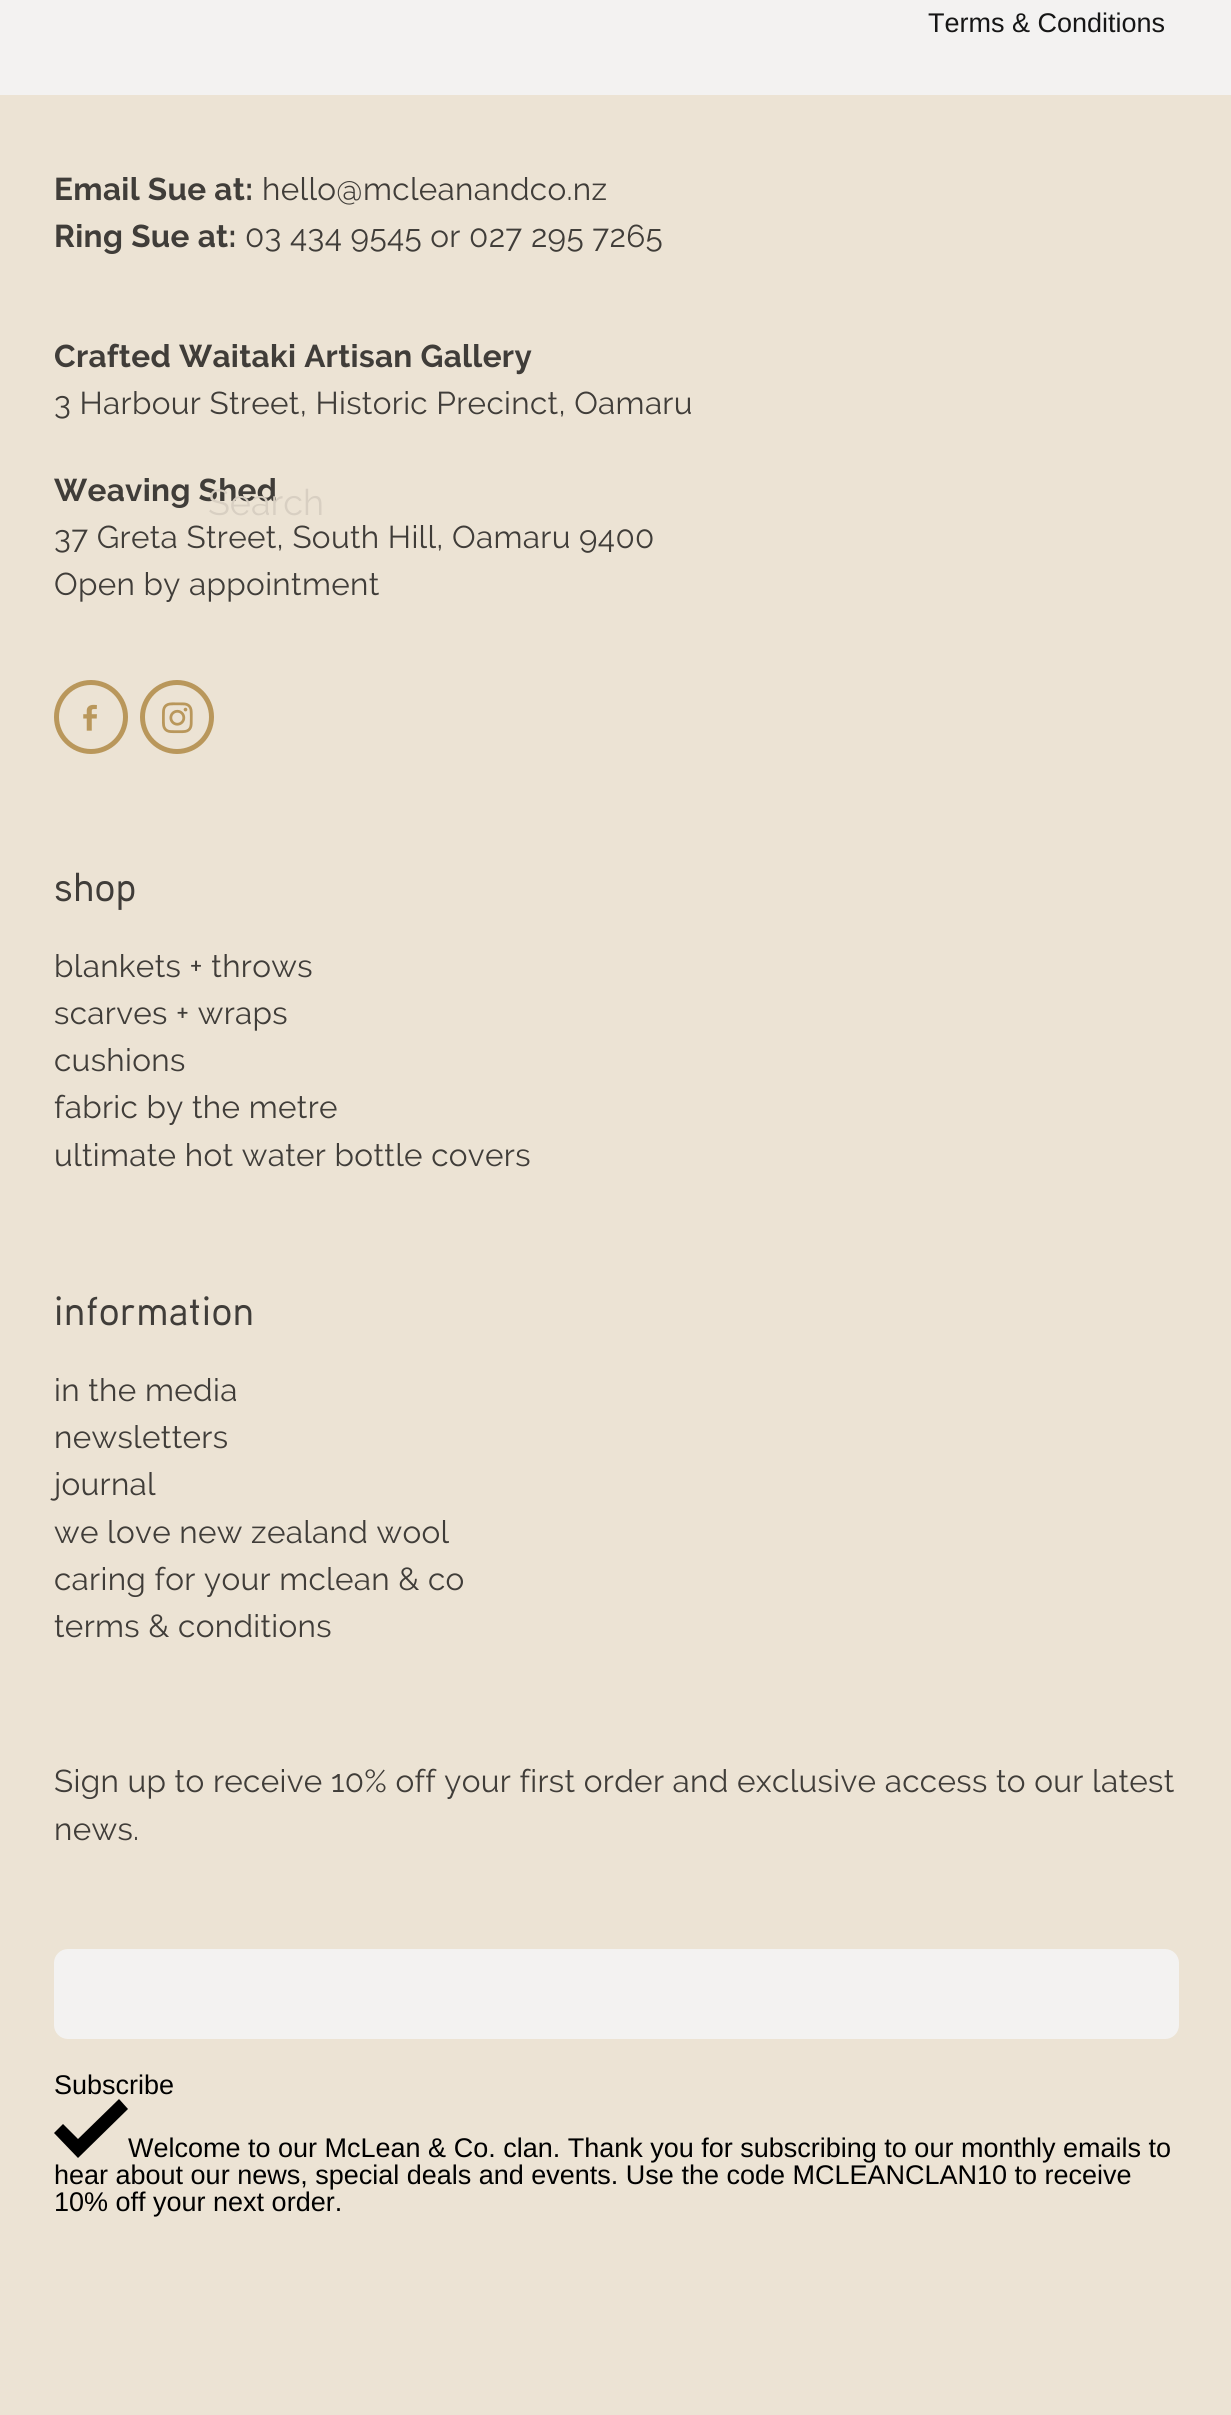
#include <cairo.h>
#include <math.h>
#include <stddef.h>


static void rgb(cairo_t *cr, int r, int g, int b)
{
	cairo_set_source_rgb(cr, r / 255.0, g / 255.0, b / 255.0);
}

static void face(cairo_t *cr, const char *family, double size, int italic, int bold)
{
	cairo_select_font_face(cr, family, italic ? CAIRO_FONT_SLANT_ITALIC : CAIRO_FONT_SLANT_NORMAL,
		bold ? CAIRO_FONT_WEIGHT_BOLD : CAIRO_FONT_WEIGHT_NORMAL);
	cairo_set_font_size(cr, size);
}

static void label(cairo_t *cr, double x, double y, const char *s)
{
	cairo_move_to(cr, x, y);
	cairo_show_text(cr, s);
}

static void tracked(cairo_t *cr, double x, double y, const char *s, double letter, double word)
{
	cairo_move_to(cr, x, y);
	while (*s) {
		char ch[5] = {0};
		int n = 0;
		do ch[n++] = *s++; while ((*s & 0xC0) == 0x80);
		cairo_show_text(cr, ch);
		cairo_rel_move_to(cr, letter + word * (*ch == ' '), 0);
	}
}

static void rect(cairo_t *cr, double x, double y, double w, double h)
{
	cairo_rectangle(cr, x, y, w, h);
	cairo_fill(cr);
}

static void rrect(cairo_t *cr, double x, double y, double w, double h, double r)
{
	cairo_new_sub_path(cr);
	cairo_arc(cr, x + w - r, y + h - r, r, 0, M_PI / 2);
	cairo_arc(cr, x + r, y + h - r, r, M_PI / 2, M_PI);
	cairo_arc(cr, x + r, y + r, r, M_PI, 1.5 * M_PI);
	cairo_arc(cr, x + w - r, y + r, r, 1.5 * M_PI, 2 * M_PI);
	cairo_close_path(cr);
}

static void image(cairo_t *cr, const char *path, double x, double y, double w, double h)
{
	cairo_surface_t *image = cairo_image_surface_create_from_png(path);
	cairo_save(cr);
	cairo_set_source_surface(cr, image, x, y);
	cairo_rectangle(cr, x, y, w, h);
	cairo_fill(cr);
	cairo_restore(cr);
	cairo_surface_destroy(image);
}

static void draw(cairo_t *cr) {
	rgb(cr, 243, 242, 241);
	cairo_paint(cr);
	face(cr, "Liberation Sans", 27, 0, 0);
	rgb(cr, 22, 22, 22);
	label(cr, 928, 32, "Terms & Conditions");
	rgb(cr, 236, 227, 212);
	rect(cr, 0, 95, 1231, 2320);
	face(cr, "Raleway", 31.5, 0, 1);
	rgb(cr, 64, 61, 57);
	tracked(cr, 54, 200, "Email Sue at:", 0.32, 0);
	face(cr, "Raleway", 31.5, 0, 0);
	tracked(cr, 262, 200, "hello@mcleanandco.nz", 0.32, 0);
	face(cr, "Raleway", 31.5, 0, 1);
	tracked(cr, 54, 247, "Ring Sue at:", 0.32, 0);
	face(cr, "Raleway", 31.5, 0, 0);
	tracked(cr, 245, 247, "03 434 9545 or 027 295 7265", 0.32, 0);
	face(cr, "Raleway", 31.5, 0, 1);
	tracked(cr, 54, 367, "Crafted Waitaki Artisan Gallery", 0.32, 0);
	face(cr, "Raleway", 31.5, 0, 0);
	tracked(cr, 54, 414, "3 Harbour Street, Historic Precinct, Oamaru", 0.32, 0);
	face(cr, "Raleway", 31.5, 0, 1);
	tracked(cr, 54, 501, "Weaving Shed", 0.32, 0);
	face(cr, "Raleway", 31.5, 0, 0);
	tracked(cr, 54, 548, "37 Greta Street, South Hill, Oamaru 9400", 0.32, 0);
	tracked(cr, 54, 595, "Open by appointment", 0.32, 0);
	cairo_new_path(cr);
	cairo_arc(cr, 91, 717, 34.5, 0, 2 * M_PI);
	rgb(cr, 185, 151, 91);
	cairo_set_line_width(cr, 5);
	cairo_stroke(cr);
	image(cr, "image0.png", 83, 704, 14, 27);
	cairo_arc(cr, 177, 717, 34.5, 0, 2 * M_PI);
	cairo_stroke(cr);
	image(cr, "image1.png", 162, 702, 31, 32);
	face(cr, "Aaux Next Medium", 40.5, 0, 0);
	rgb(cr, 64, 61, 57);
	tracked(cr, 54, 901, "shop", 0.75, 0);
	face(cr, "Raleway", 31.5, 0, 0);
	tracked(cr, 54, 977, "blankets + throws", 0.32, 0);
	tracked(cr, 54, 1024, "scarves + wraps", 0.32, 0);
	tracked(cr, 54, 1071, "cushions", 0.32, 0);
	tracked(cr, 54, 1118, "fabric by the metre", 0.32, 0);
	tracked(cr, 54, 1166, "ultimate hot water bottle covers", 0.32, 0);
	face(cr, "Aaux Next Medium", 40.5, 0, 0);
	tracked(cr, 54, 1325, "information", 0.75, 0);
	face(cr, "Raleway", 31.5, 0, 0);
	tracked(cr, 54, 1401, "in the media", 0.32, 0);
	tracked(cr, 54, 1448, "newsletters", 0.32, 0);
	tracked(cr, 54, 1495, "journal", 0.32, 0);
	tracked(cr, 54, 1543, "we love new zealand wool", 0.32, 0);
	tracked(cr, 54, 1590, "caring for your mclean & co", 0.32, 0);
	tracked(cr, 54, 1637, "terms & conditions", 0.32, 0);
	tracked(cr, 54, 1792, "Sign up to receive 10% off your first order and exclusive access to our latest", 0.32, 0);
	tracked(cr, 54, 1840, "news.", 0.32, 0);
	rgb(cr, 243, 242, 241);
	rrect(cr, 54, 1949, 1125, 90, 14);
	cairo_fill(cr);
	face(cr, "Liberation Sans", 27, 0, 0);
	rgb(cr, 0, 0, 0);
	label(cr, 54, 2094, "Subscribe");
	cairo_new_path(cr);
	cairo_move_to(cr, 128, 2109);
	cairo_line_to(cr, 78, 2158);
	cairo_line_to(cr, 54, 2133);
	cairo_line_to(cr, 63, 2124);
	cairo_line_to(cr, 78, 2139);
	cairo_line_to(cr, 119, 2099);
	cairo_close_path(cr);
	cairo_fill(cr);
	label(cr, 128, 2157, "Welcome to our McLean & Co. clan. Thank you for subscribing to our monthly emails to");
	label(cr, 54, 2184, "hear about our news, special deals and events. Use the code MCLEANCLAN10 to receive");
	label(cr, 54, 2211, "10% off your next order.");
	face(cr, "Raleway", 36, 0, 0);
	rgb(cr, 216, 207, 194);
	label(cr, 208, 515, "Search");
}

int main(void) {
	cairo_surface_t *surface = cairo_image_surface_create(CAIRO_FORMAT_RGB24, 1231, 2415);
	cairo_t *cr = cairo_create(surface);
	cairo_font_options_t *options = cairo_font_options_create();
	cairo_font_options_set_hint_metrics(options, CAIRO_HINT_METRICS_OFF);
	cairo_font_options_set_hint_style(options, CAIRO_HINT_STYLE_NONE);
	cairo_set_font_options(cr, options);
	cairo_set_miter_limit(cr, 4);
	draw(cr);
	cairo_surface_write_to_png(surface, "render.png");
	cairo_font_options_destroy(options);
	cairo_destroy(cr);
	cairo_surface_destroy(surface);
	return 0;
}
